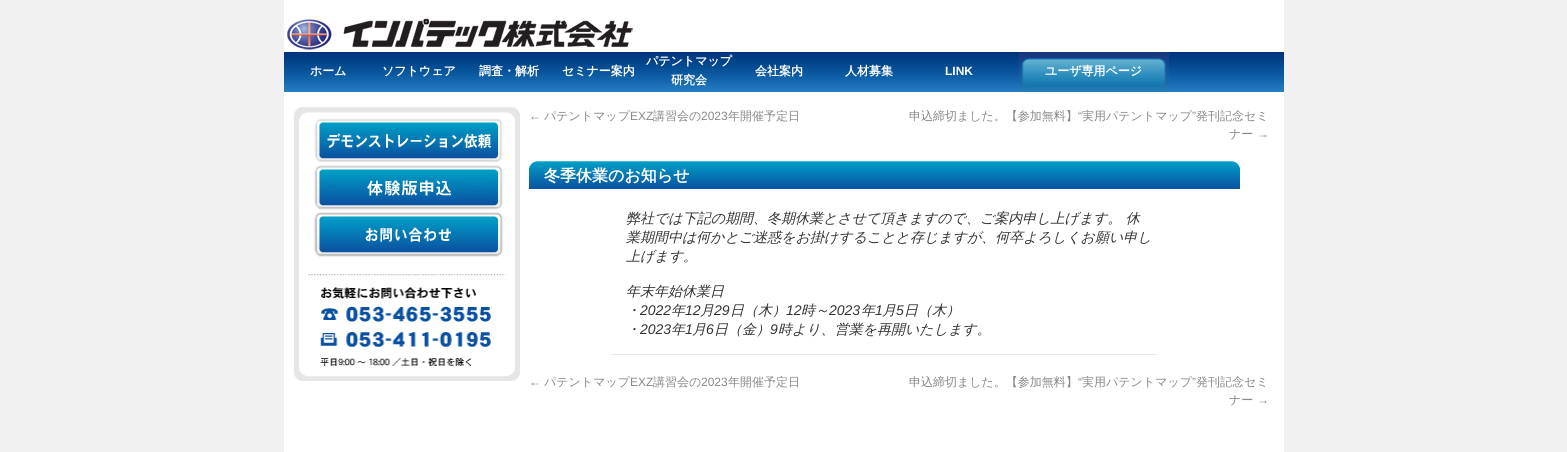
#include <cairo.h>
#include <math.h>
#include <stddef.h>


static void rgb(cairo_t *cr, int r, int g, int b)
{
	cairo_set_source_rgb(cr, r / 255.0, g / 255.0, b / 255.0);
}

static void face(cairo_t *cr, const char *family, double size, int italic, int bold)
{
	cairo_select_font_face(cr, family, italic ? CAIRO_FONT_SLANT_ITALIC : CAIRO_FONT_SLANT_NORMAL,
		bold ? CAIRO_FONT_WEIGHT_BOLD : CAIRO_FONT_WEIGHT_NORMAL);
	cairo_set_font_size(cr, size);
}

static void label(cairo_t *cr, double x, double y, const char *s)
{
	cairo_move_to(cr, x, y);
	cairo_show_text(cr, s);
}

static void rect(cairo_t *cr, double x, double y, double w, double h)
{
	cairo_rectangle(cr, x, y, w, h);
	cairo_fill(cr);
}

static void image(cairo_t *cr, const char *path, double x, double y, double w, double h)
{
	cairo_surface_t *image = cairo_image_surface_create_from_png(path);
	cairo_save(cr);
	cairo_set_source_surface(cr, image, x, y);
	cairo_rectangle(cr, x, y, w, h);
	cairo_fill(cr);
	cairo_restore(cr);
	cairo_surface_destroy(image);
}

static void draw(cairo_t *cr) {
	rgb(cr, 241, 241, 241);
	cairo_paint(cr);
	rgb(cr, 255, 255, 255);
	rect(cr, 284, 0, 1000, 452);
	image(cr, "image0.png", 287, 18, 346, 32);
	image(cr, "image1.png", 284, 52, 1000, 40);
	face(cr, "WenQuanYi Zen Hei", 12, 0, 1);
	label(cr, 310, 75, "ホーム");
	label(cr, 382, 75, "ソフトウェア");
	label(cr, 479, 75, "調査・解析");
	label(cr, 562, 75, "セミナー案内");
	label(cr, 646, 65, "パテントマップ");
	label(cr, 671, 84, "研究会");
	label(cr, 755, 75, "会社案内");
	label(cr, 845, 75, "人材募集");
	face(cr, "Liberation Sans", 12, 0, 1);
	label(cr, 945, 75, "LINK");
	image(cr, "image2.png", 1019, 52, 150, 40);
	face(cr, "WenQuanYi Zen Hei", 12, 0, 1);
	label(cr, 1045, 75, "ユーザ専用ページ");
	image(cr, "image3.png", 294, 107, 226, 274);
	image(cr, "image4.png", 314, 117, 189, 46);
	image(cr, "image5.png", 314, 164, 190, 47);
	image(cr, "image6.png", 313, 211, 191, 47);
	face(cr, "Liberation Sans", 12, 0, 0);
	rgb(cr, 136, 136, 136);
	label(cr, 529, 120, "←");
	face(cr, "WenQuanYi Zen Hei Medium", 12, 0, 0);
	label(cr, 544, 120, "パテントマップ");
	face(cr, "Liberation Sans", 12, 0, 0);
	label(cr, 630, 120, "EXZ");
	face(cr, "WenQuanYi Zen Hei Medium", 12, 0, 0);
	label(cr, 653, 120, "講習会の");
	face(cr, "Liberation Sans", 12, 0, 0);
	label(cr, 701, 120, "2023");
	face(cr, "WenQuanYi Zen Hei Medium", 12, 0, 0);
	label(cr, 728, 120, "年開催予定日");
	label(cr, 909, 120, "申込締切ました。【参加無料】");
	face(cr, "Liberation Sans", 12, 0, 0);
	label(cr, 1078, 120, "“");
	face(cr, "WenQuanYi Zen Hei Medium", 12, 0, 0);
	label(cr, 1082, 120, "実用パテントマップ");
	face(cr, "Liberation Sans", 12, 0, 0);
	label(cr, 1192, 120, "”");
	face(cr, "WenQuanYi Zen Hei Medium", 12, 0, 0);
	label(cr, 1196, 120, "発刊記念セミ");
	label(cr, 1229, 138, "ナー");
	face(cr, "Liberation Sans", 12, 0, 0);
	label(cr, 1257, 138, "→");
	image(cr, "image7.png", 529, 161, 711, 28);
	face(cr, "WenQuanYi Zen Hei", 16, 0, 1);
	rgb(cr, 255, 255, 255);
	label(cr, 544, 181, "冬季休業のお知らせ");
	face(cr, "WenQuanYi Zen Hei Medium", 14, 1, 0);
	rgb(cr, 51, 51, 51);
	label(cr, 626, 223, "弊社では下記の期間、冬期休業とさせて頂きますので、ご案内申し上げます。 休");
	label(cr, 626, 242, "業期間中は何かとご迷惑をお掛けすることと存じますが、何卒よろしくお願い申し");
	label(cr, 626, 261, "上げます。");
	label(cr, 626, 296, "年末年始休業日");
	label(cr, 626, 315, "・");
	face(cr, "Liberation Sans", 14, 1, 0);
	label(cr, 640, 315, "2022");
	face(cr, "WenQuanYi Zen Hei Medium", 14, 1, 0);
	label(cr, 671, 315, "年");
	face(cr, "Liberation Sans", 14, 1, 0);
	label(cr, 685, 315, "12");
	face(cr, "WenQuanYi Zen Hei Medium", 14, 1, 0);
	label(cr, 700, 315, "月");
	face(cr, "Liberation Sans", 14, 1, 0);
	label(cr, 714, 315, "29");
	face(cr, "WenQuanYi Zen Hei Medium", 14, 1, 0);
	label(cr, 730, 315, "日（木）");
	face(cr, "Liberation Sans", 14, 1, 0);
	label(cr, 786, 315, "12");
	face(cr, "WenQuanYi Zen Hei Medium", 14, 1, 0);
	label(cr, 801, 315, "時～");
	face(cr, "Liberation Sans", 14, 1, 0);
	label(cr, 829, 315, "2023");
	face(cr, "WenQuanYi Zen Hei Medium", 14, 1, 0);
	label(cr, 861, 315, "年");
	face(cr, "Liberation Sans", 14, 1, 0);
	label(cr, 875, 315, "1");
	face(cr, "WenQuanYi Zen Hei Medium", 14, 1, 0);
	label(cr, 882, 315, "月");
	face(cr, "Liberation Sans", 14, 1, 0);
	label(cr, 896, 315, "5");
	face(cr, "WenQuanYi Zen Hei Medium", 14, 1, 0);
	label(cr, 904, 315, "日（木）");
	label(cr, 626, 334, "・");
	face(cr, "Liberation Sans", 14, 1, 0);
	label(cr, 640, 334, "2023");
	face(cr, "WenQuanYi Zen Hei Medium", 14, 1, 0);
	label(cr, 671, 334, "年");
	face(cr, "Liberation Sans", 14, 1, 0);
	label(cr, 685, 334, "1");
	face(cr, "WenQuanYi Zen Hei Medium", 14, 1, 0);
	label(cr, 692, 334, "月");
	face(cr, "Liberation Sans", 14, 1, 0);
	label(cr, 706, 334, "6");
	face(cr, "WenQuanYi Zen Hei Medium", 14, 1, 0);
	label(cr, 714, 334, "日（金）");
	face(cr, "Liberation Sans", 14, 1, 0);
	label(cr, 770, 334, "9");
	face(cr, "WenQuanYi Zen Hei Medium", 14, 1, 0);
	label(cr, 778, 334, "時より、営業を再開いたします。");
	rgb(cr, 231, 231, 231);
	rect(cr, 611, 354, 546, 1);
	face(cr, "Liberation Sans", 12, 0, 0);
	rgb(cr, 136, 136, 136);
	label(cr, 529, 386, "←");
	face(cr, "WenQuanYi Zen Hei Medium", 12, 0, 0);
	label(cr, 544, 386, "パテントマップ");
	face(cr, "Liberation Sans", 12, 0, 0);
	label(cr, 630, 386, "EXZ");
	face(cr, "WenQuanYi Zen Hei Medium", 12, 0, 0);
	label(cr, 653, 386, "講習会の");
	face(cr, "Liberation Sans", 12, 0, 0);
	label(cr, 701, 386, "2023");
	face(cr, "WenQuanYi Zen Hei Medium", 12, 0, 0);
	label(cr, 728, 386, "年開催予定日");
	label(cr, 909, 386, "申込締切ました。【参加無料】");
	face(cr, "Liberation Sans", 12, 0, 0);
	label(cr, 1078, 386, "“");
	face(cr, "WenQuanYi Zen Hei Medium", 12, 0, 0);
	label(cr, 1082, 386, "実用パテントマップ");
	face(cr, "Liberation Sans", 12, 0, 0);
	label(cr, 1192, 386, "”");
	face(cr, "WenQuanYi Zen Hei Medium", 12, 0, 0);
	label(cr, 1196, 386, "発刊記念セミ");
	label(cr, 1229, 404, "ナー");
	face(cr, "Liberation Sans", 12, 0, 0);
	label(cr, 1257, 404, "→");
}

int main(void) {
	cairo_surface_t *surface = cairo_image_surface_create(CAIRO_FORMAT_RGB24, 1567, 452);
	cairo_t *cr = cairo_create(surface);
	cairo_font_options_t *options = cairo_font_options_create();
	cairo_font_options_set_hint_metrics(options, CAIRO_HINT_METRICS_OFF);
	cairo_font_options_set_hint_style(options, CAIRO_HINT_STYLE_NONE);
	cairo_set_font_options(cr, options);
	cairo_set_miter_limit(cr, 4);
	draw(cr);
	cairo_surface_write_to_png(surface, "render.png");
	cairo_font_options_destroy(options);
	cairo_destroy(cr);
	cairo_surface_destroy(surface);
	return 0;
}
